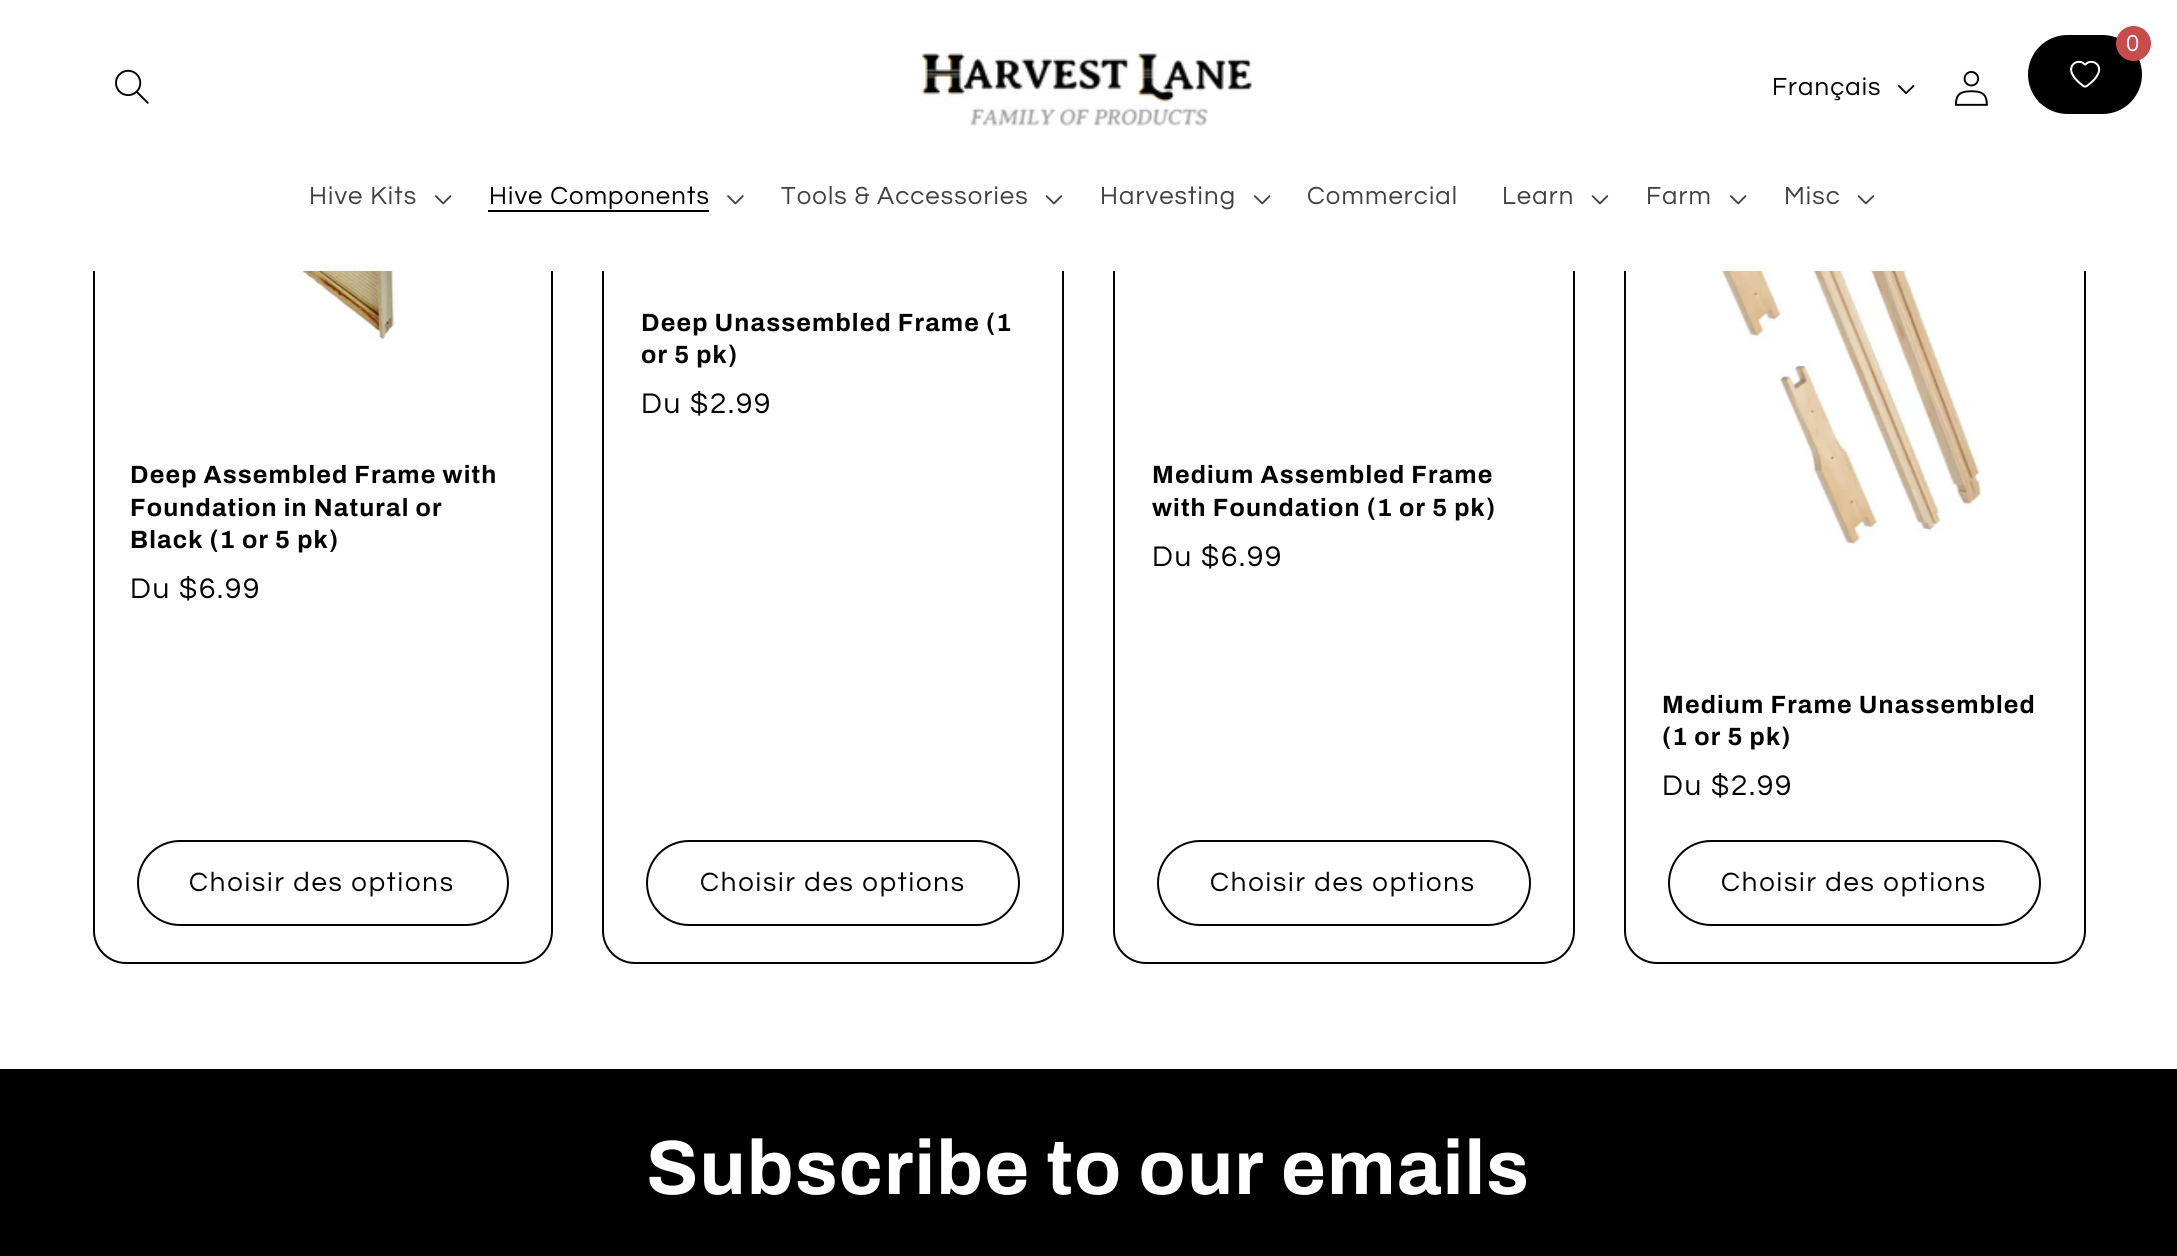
#include <cairo.h>
#include <math.h>
#include <stddef.h>


static void rgb(cairo_t *cr, int r, int g, int b)
{
	cairo_set_source_rgb(cr, r / 255.0, g / 255.0, b / 255.0);
}

static void face(cairo_t *cr, const char *family, double size, int italic, int bold)
{
	cairo_select_font_face(cr, family, italic ? CAIRO_FONT_SLANT_ITALIC : CAIRO_FONT_SLANT_NORMAL,
		bold ? CAIRO_FONT_WEIGHT_BOLD : CAIRO_FONT_WEIGHT_NORMAL);
	cairo_set_font_size(cr, size);
}

static void tracked(cairo_t *cr, double x, double y, const char *s, double letter, double word)
{
	cairo_move_to(cr, x, y);
	while (*s) {
		char ch[5] = {0};
		int n = 0;
		do ch[n++] = *s++; while ((*s & 0xC0) == 0x80);
		cairo_show_text(cr, ch);
		cairo_rel_move_to(cr, letter + word * (*ch == ' '), 0);
	}
}

static void rect(cairo_t *cr, double x, double y, double w, double h)
{
	cairo_rectangle(cr, x, y, w, h);
	cairo_fill(cr);
}

static void rrect(cairo_t *cr, double x, double y, double w, double h, double r)
{
	cairo_new_sub_path(cr);
	cairo_arc(cr, x + w - r, y + h - r, r, 0, M_PI / 2);
	cairo_arc(cr, x + r, y + h - r, r, M_PI / 2, M_PI);
	cairo_arc(cr, x + r, y + r, r, M_PI, 1.5 * M_PI);
	cairo_arc(cr, x + w - r, y + r, r, 1.5 * M_PI, 2 * M_PI);
	cairo_close_path(cr);
}

static void image(cairo_t *cr, const char *path, double x, double y, double w, double h)
{
	cairo_surface_t *image = cairo_image_surface_create_from_png(path);
	cairo_save(cr);
	cairo_set_source_surface(cr, image, x, y);
	cairo_rectangle(cr, x, y, w, h);
	cairo_fill(cr);
	cairo_restore(cr);
	cairo_surface_destroy(image);
}

static void draw(cairo_t *cr) {
	rgb(cr, 255, 255, 255);
	cairo_paint(cr);
	rrect(cr, 94, -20, 458, 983, 32);
	rgb(cr, 3, 3, 3);
	cairo_stroke(cr);
	rrect(cr, 603, -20, 460, 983, 32);
	cairo_stroke(cr);
	rrect(cr, 1114, -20, 460, 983, 32);
	cairo_stroke(cr);
	rrect(cr, 1625, -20, 460, 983, 32);
	cairo_stroke(cr);
	rgb(cr, 255, 255, 255);
	rect(cr, 93, 0, 1993, 271);
	image(cr, "image5.png", 2036, 98, 7, 7);
	rgb(cr, 0, 0, 0);
	rrect(cr, 2028, 35, 114, 79, 39.5);
	cairo_fill(cr);
	rgb(cr, 199, 77, 77);
	cairo_arc(cr, 2133.5, 43.5, 17.5, 0, 2 * M_PI);
	cairo_fill(cr);
	face(cr, "Questrial", 24, 0, 0);
	rgb(cr, 255, 255, 255);
	tracked(cr, 2126, 51, "0", 1.1, 0);
	image(cr, "image0.png", 2070, 60, 31, 28);
	image(cr, "image1.png", 115, 69, 34, 35);
	image(cr, "image2.png", 919, 49, 333, 77);
	face(cr, "Questrial", 25.75, 0, 0);
	rgb(cr, 3, 3, 3);
	tracked(cr, 1772, 95, "Français", 1.1, 0);
	image(cr, "image3.png", 1898, 85, 17, 9);
	image(cr, "image4.png", 1954, 71, 34, 35);
	rgb(cr, 66, 66, 66);
	tracked(cr, 309, 204, "Hive Kits", 1.1, 0);
	image(cr, "image6.png", 435, 195, 17, 10);
	rgb(cr, 3, 3, 3);
	tracked(cr, 489, 204, "Hive Components", 1.1, 0);
	rect(cr, 488, 210, 221, 2);
	image(cr, "image7.png", 727, 195, 17, 10);
	rgb(cr, 66, 66, 66);
	tracked(cr, 781, 204, "Tools & Accessories", 1.1, 0);
	image(cr, "image8.png", 1045, 195, 18, 10);
	tracked(cr, 1100, 204, "Harvesting", 1.1, 0);
	image(cr, "image6.png", 1254, 195, 17, 10);
	tracked(cr, 1307, 204, "Commercial", 1.1, 0);
	tracked(cr, 1502, 204, "Learn", 1.1, 0);
	image(cr, "image8.png", 1591, 195, 18, 10);
	tracked(cr, 1646, 204, "Farm", 1.1, 0);
	image(cr, "image6.png", 1730, 195, 17, 10);
	tracked(cr, 1784, 204, "Misc", 1.1, 0);
	image(cr, "image8.png", 1857, 195, 18, 10);
	image(cr, "image9.png", 239, 271, 157, 69);
	face(cr, "Archivo", 25, 0, 1);
	rgb(cr, 3, 3, 3);
	tracked(cr, 130, 483, "Deep Assembled Frame with", 1.15, 0);
	tracked(cr, 130, 516, "Foundation in Natural or", 1.15, 0);
	tracked(cr, 130, 548, "Black (1 or 5 pk)", 1.15, 0);
	face(cr, "Questrial", 29.5, 0, 0);
	tracked(cr, 130, 598, "Du $6.99", 1.8, 0);
	rrect(cr, 138, 841, 370, 84, 42);
	cairo_stroke(cr);
	face(cr, "Questrial", 27.5, 0, 0);
	tracked(cr, 189, 891, "Choisir des options", 1.8, 0);
	face(cr, "Archivo", 25, 0, 1);
	tracked(cr, 641, 331, "Deep Unassembled Frame (1", 1.15, 0);
	tracked(cr, 641, 363, "or 5 pk)", 1.15, 0);
	face(cr, "Questrial", 29.5, 0, 0);
	tracked(cr, 641, 413, "Du $2.99", 1.8, 0);
	rrect(cr, 647, 841, 372, 84, 42);
	cairo_stroke(cr);
	face(cr, "Questrial", 27.5, 0, 0);
	tracked(cr, 700, 891, "Choisir des options", 1.8, 0);
	face(cr, "Archivo", 25, 0, 1);
	tracked(cr, 1152, 483, "Medium Assembled Frame", 1.15, 0);
	tracked(cr, 1152, 516, "with Foundation (1 or 5 pk)", 1.15, 0);
	face(cr, "Questrial", 29.5, 0, 0);
	tracked(cr, 1152, 566, "Du $6.99", 1.8, 0);
	rrect(cr, 1158, 841, 372, 84, 42);
	cairo_stroke(cr);
	face(cr, "Questrial", 27.5, 0, 0);
	tracked(cr, 1210, 891, "Choisir des options", 1.8, 0);
	image(cr, "image10.png", 1682, 271, 300, 274);
	face(cr, "Archivo", 25, 0, 1);
	tracked(cr, 1662, 713, "Medium Frame Unassembled", 1.15, 0);
	tracked(cr, 1662, 745, "(1 or 5 pk)", 1.15, 0);
	face(cr, "Questrial", 29.5, 0, 0);
	tracked(cr, 1662, 795, "Du $2.99", 1.8, 0);
	rrect(cr, 1669, 841, 371, 84, 42);
	cairo_stroke(cr);
	face(cr, "Questrial", 27.5, 0, 0);
	tracked(cr, 1721, 891, "Choisir des options", 1.8, 0);
	rgb(cr, 0, 0, 0);
	rect(cr, 0, 1069, 2177, 187);
	face(cr, "Archivo", 77, 0, 1);
	rgb(cr, 255, 255, 255);
	tracked(cr, 646, 1194, "Subscribe to our emails", 1.15, 0);
}

int main(void) {
	cairo_surface_t *surface = cairo_image_surface_create(CAIRO_FORMAT_RGB24, 2177, 1256);
	cairo_t *cr = cairo_create(surface);
	cairo_font_options_t *options = cairo_font_options_create();
	cairo_font_options_set_hint_metrics(options, CAIRO_HINT_METRICS_OFF);
	cairo_font_options_set_hint_style(options, CAIRO_HINT_STYLE_NONE);
	cairo_set_font_options(cr, options);
	cairo_set_miter_limit(cr, 4);
	draw(cr);
	cairo_surface_write_to_png(surface, "render.png");
	cairo_font_options_destroy(options);
	cairo_destroy(cr);
	cairo_surface_destroy(surface);
	return 0;
}
